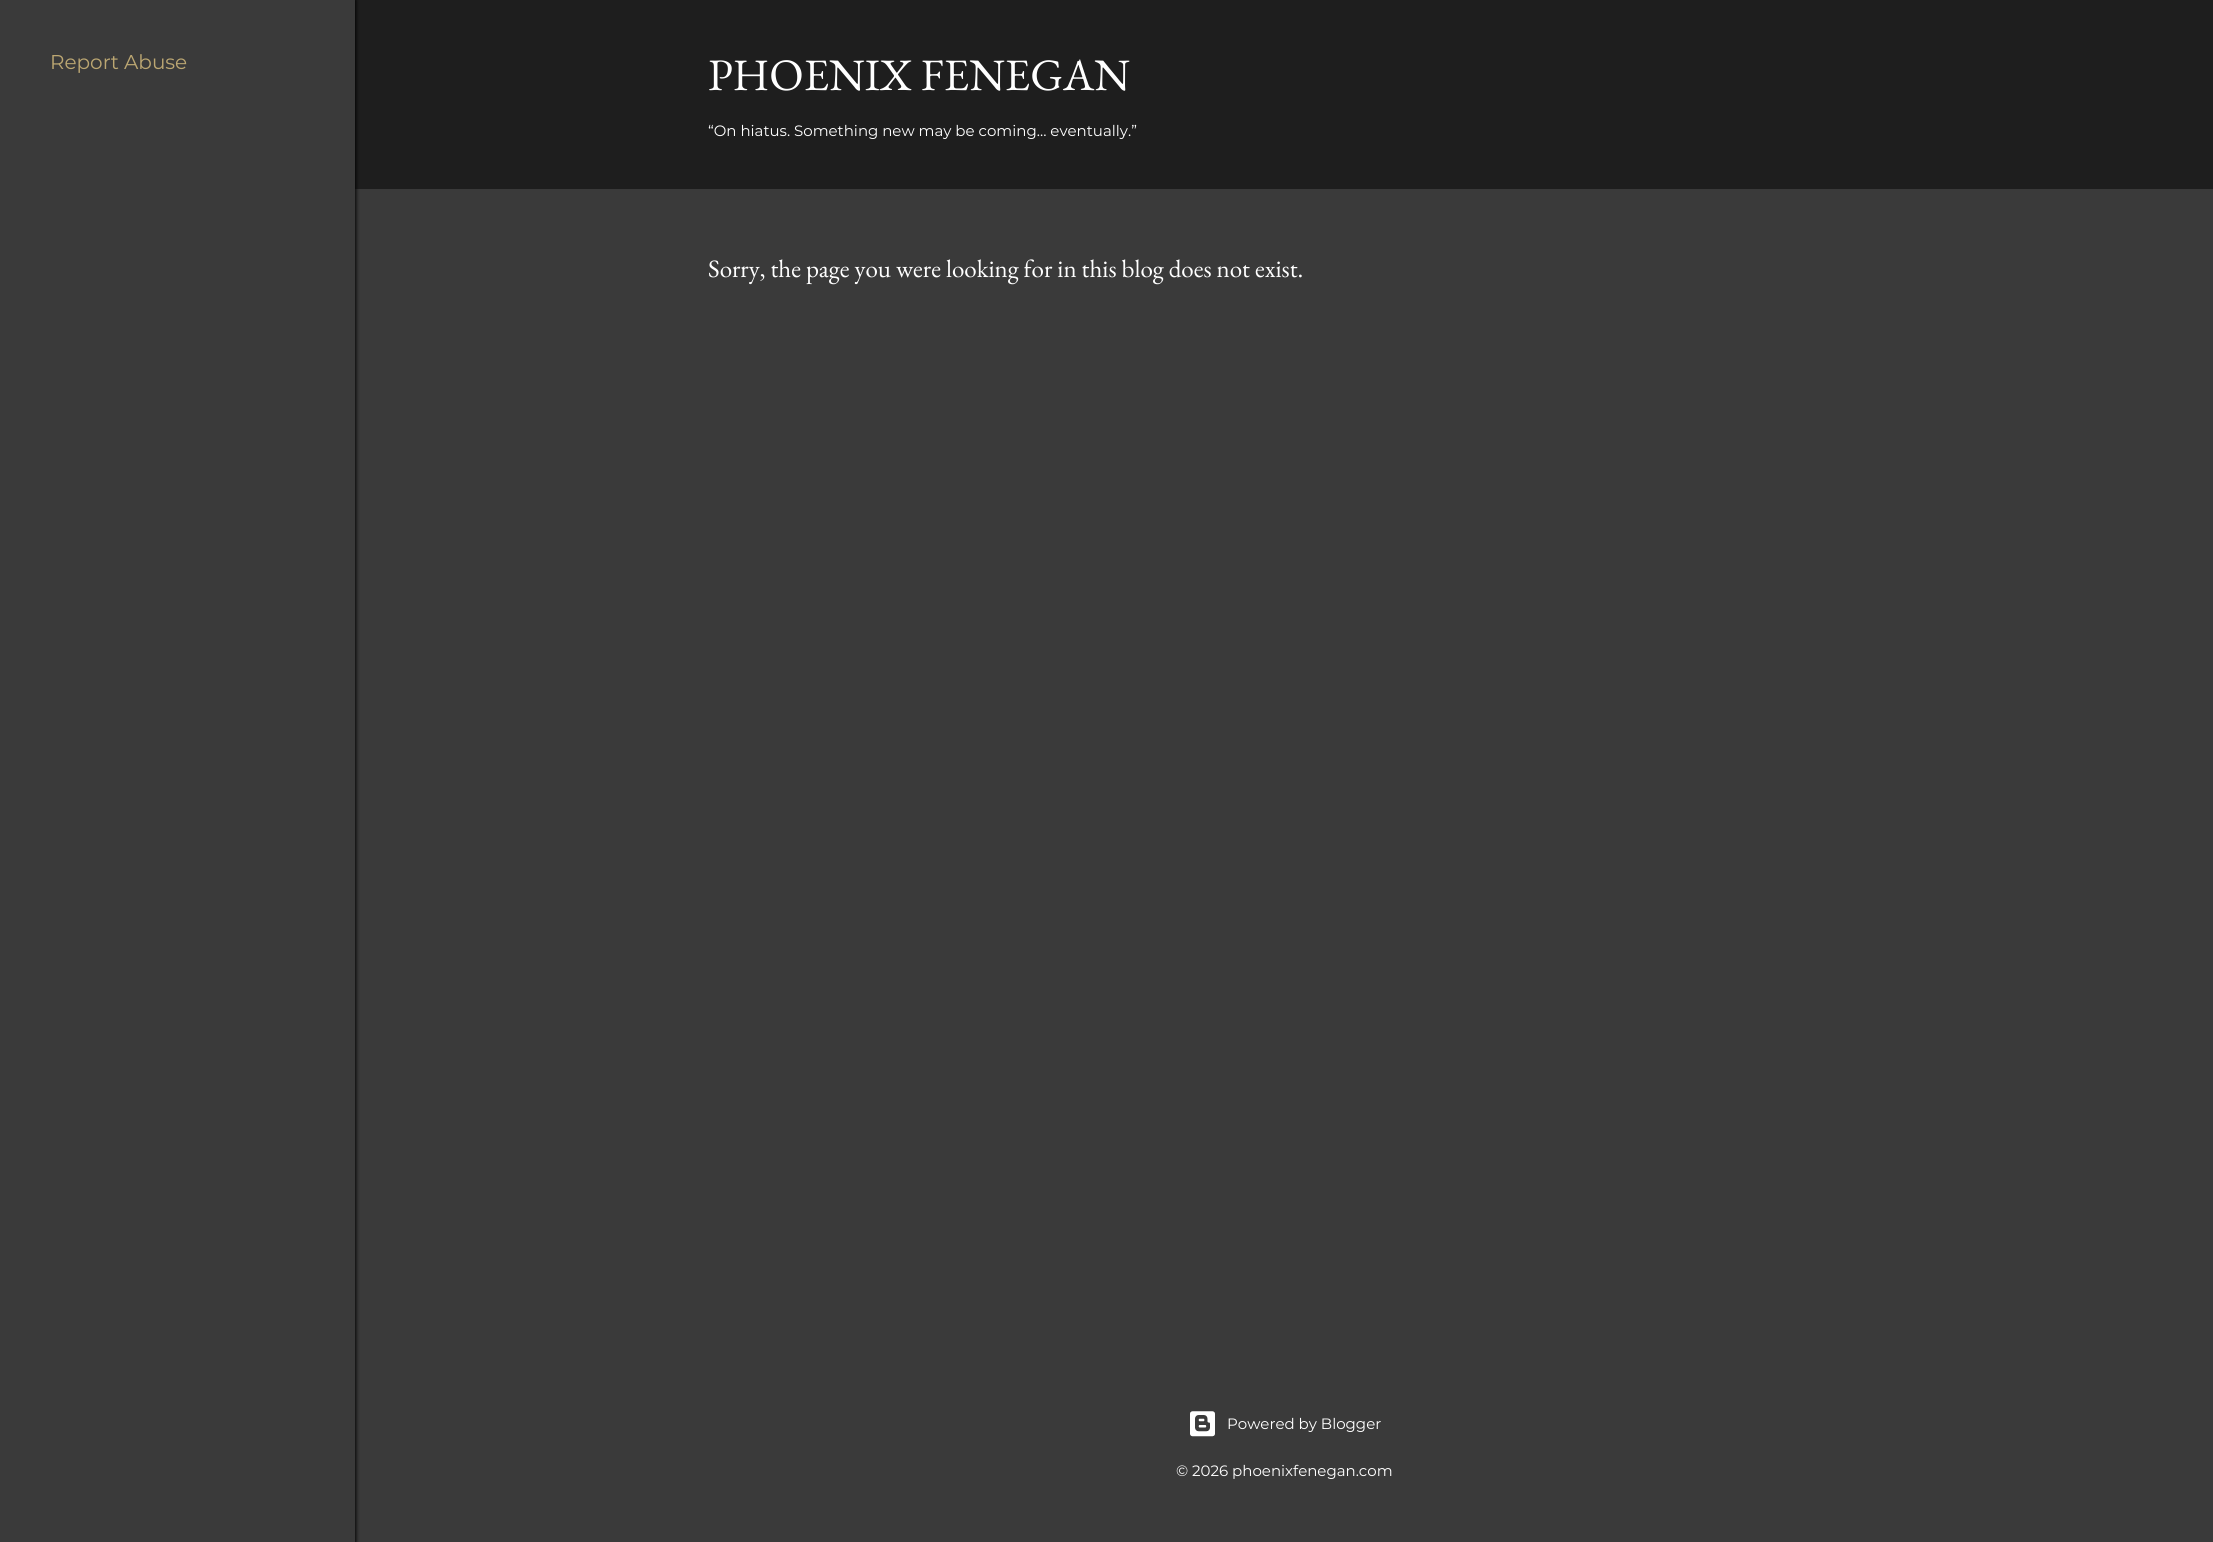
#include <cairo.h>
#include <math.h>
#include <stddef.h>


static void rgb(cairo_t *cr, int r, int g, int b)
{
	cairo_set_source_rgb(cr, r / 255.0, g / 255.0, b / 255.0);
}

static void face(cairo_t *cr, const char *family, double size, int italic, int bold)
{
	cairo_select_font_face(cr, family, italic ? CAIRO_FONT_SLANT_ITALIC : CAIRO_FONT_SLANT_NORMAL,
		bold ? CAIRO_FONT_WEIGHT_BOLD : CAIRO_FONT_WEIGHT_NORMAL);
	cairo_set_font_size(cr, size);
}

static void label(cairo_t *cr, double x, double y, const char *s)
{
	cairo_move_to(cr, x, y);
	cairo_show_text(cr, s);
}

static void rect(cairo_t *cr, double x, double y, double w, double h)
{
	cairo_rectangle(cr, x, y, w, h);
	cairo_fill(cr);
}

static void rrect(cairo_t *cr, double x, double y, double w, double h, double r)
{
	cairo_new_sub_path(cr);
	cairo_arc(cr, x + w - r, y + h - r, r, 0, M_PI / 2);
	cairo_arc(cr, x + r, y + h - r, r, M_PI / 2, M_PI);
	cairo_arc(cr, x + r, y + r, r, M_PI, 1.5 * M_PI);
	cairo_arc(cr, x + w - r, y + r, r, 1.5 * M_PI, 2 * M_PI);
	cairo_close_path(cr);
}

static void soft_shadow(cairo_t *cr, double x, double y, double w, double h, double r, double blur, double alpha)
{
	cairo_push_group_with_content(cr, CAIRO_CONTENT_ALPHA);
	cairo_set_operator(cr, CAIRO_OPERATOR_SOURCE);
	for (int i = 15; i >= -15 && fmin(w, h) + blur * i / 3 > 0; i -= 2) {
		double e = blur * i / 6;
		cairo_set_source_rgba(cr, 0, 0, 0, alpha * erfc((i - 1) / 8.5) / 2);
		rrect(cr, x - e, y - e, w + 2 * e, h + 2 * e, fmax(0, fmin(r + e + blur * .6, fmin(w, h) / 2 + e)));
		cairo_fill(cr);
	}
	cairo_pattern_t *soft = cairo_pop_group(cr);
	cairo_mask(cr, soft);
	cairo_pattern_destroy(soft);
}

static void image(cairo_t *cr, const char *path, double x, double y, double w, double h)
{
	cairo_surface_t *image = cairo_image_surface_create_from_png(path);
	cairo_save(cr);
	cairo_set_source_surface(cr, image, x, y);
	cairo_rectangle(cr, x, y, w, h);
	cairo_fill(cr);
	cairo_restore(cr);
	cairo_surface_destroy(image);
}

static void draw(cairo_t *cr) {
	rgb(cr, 58, 58, 58);
	cairo_paint(cr);
	rgb(cr, 30, 30, 30);
	rect(cr, 355, 0, 1858, 189);
	cairo_save(cr);
	cairo_rectangle(cr, 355, 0, 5, 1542);
	cairo_clip(cr);
	rgb(cr, 0, 0, 0);
	soft_shadow(cr, 1, 0, 355, 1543, 0, 2, 1);
	cairo_restore(cr);
	face(cr, "Montserrat", 20, 0, 0);
	rgb(cr, 188, 167, 114);
	label(cr, 50, 69, "Report Abuse");
	face(cr, "EB Garamond", 45, 0, 0);
	rgb(cr, 255, 255, 255);
	label(cr, 708, 90, "PHOENIX FENEGAN");
	face(cr, "Montserrat", 15, 0, 0);
	label(cr, 708, 136, "“On hiatus. Something new may be coming… eventually.”");
	face(cr, "EB Garamond", 25, 0, 0);
	label(cr, 708, 277, "Sorry, the page you were looking for in this blog does not exist.");
	image(cr, "image0.png", 1190, 1411, 25, 26);
	face(cr, "Montserrat", 15, 0, 0);
	label(cr, 1227, 1429, "Powered by Blogger");
	label(cr, 1176, 1476, "© 2026 phoenixfenegan.com");
}

int main(void) {
	cairo_surface_t *surface = cairo_image_surface_create(CAIRO_FORMAT_RGB24, 2213, 1542);
	cairo_t *cr = cairo_create(surface);
	cairo_font_options_t *options = cairo_font_options_create();
	cairo_font_options_set_hint_metrics(options, CAIRO_HINT_METRICS_OFF);
	cairo_font_options_set_hint_style(options, CAIRO_HINT_STYLE_NONE);
	cairo_set_font_options(cr, options);
	cairo_set_miter_limit(cr, 4);
	draw(cr);
	cairo_surface_write_to_png(surface, "render.png");
	cairo_font_options_destroy(options);
	cairo_destroy(cr);
	cairo_surface_destroy(surface);
	return 0;
}
